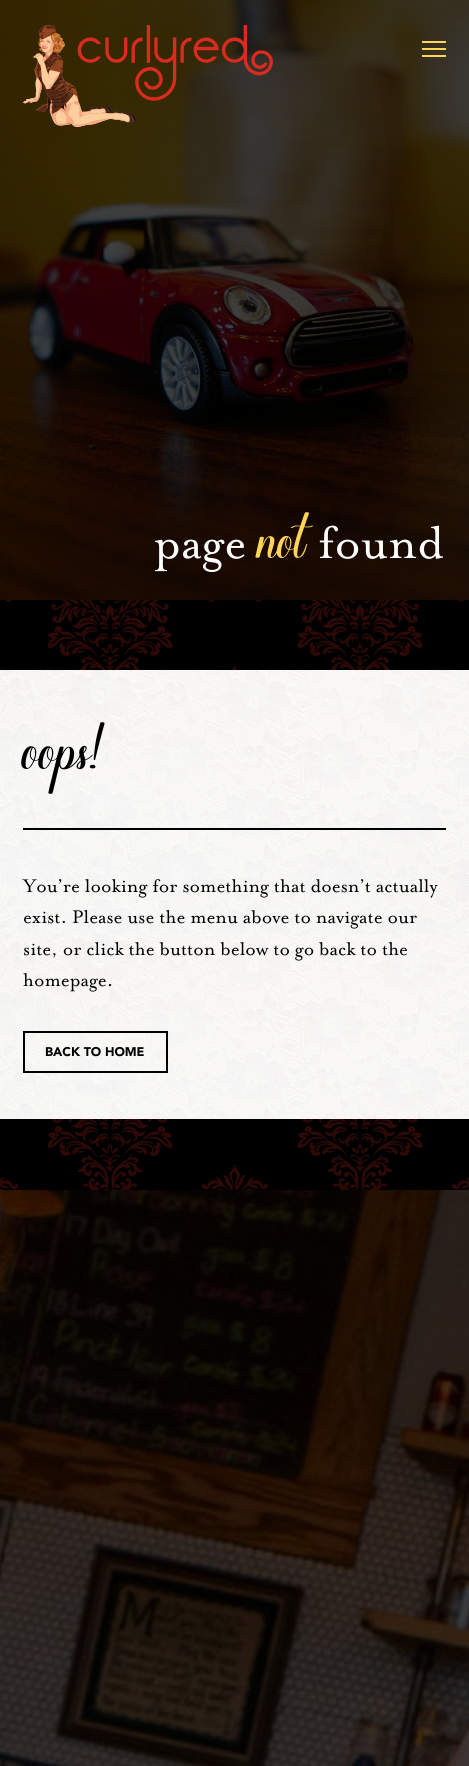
#include <cairo.h>
#include <math.h>
#include <stddef.h>


static void rgb(cairo_t *cr, int r, int g, int b)
{
	cairo_set_source_rgb(cr, r / 255.0, g / 255.0, b / 255.0);
}

static void face(cairo_t *cr, const char *family, double size, int italic, int bold)
{
	cairo_select_font_face(cr, family, italic ? CAIRO_FONT_SLANT_ITALIC : CAIRO_FONT_SLANT_NORMAL,
		bold ? CAIRO_FONT_WEIGHT_BOLD : CAIRO_FONT_WEIGHT_NORMAL);
	cairo_set_font_size(cr, size);
}

static void label(cairo_t *cr, double x, double y, const char *s)
{
	cairo_move_to(cr, x, y);
	cairo_show_text(cr, s);
}

static void rect(cairo_t *cr, double x, double y, double w, double h)
{
	cairo_rectangle(cr, x, y, w, h);
	cairo_fill(cr);
}

static void image(cairo_t *cr, const char *path, double x, double y, double w, double h)
{
	cairo_surface_t *image = cairo_image_surface_create_from_png(path);
	cairo_save(cr);
	cairo_set_source_surface(cr, image, x, y);
	cairo_rectangle(cr, x, y, w, h);
	cairo_fill(cr);
	cairo_restore(cr);
	cairo_surface_destroy(image);
}

static void draw(cairo_t *cr) {
	rgb(cr, 0, 0, 0);
	cairo_paint(cr);
	image(cr, "image0.png", 0, 600, 469, 590);
	image(cr, "image2.png", 0, 0, 469, 600);
	image(cr, "image1.png", 23, 25, 250, 102);
	rgb(cr, 254, 213, 85);
	rect(cr, 422, 48, 24, 2);
	rect(cr, 422, 41, 24, 2);
	rect(cr, 422, 55, 24, 2);
	face(cr, "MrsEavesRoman", 52.5, 0, 0);
	rgb(cr, 255, 255, 255);
	label(cr, 154, 558, "page");
	face(cr, "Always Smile", 66, 0, 0);
	rgb(cr, 254, 213, 85);
	label(cr, 258, 558, "not");
	face(cr, "MrsEavesRoman", 52.5, 0, 0);
	rgb(cr, 255, 255, 255);
	label(cr, 318, 558, "found");
	image(cr, "image3.png", 0, 670, 469, 449);
	face(cr, "Always Smile", 68, 0, 0);
	rgb(cr, 0, 0, 0);
	label(cr, 23, 769, "oops!");
	rect(cr, 23, 828, 423, 2);
	face(cr, "MrsEavesRoman", 21, 0, 0);
	label(cr, 23, 892, "You’re looking for something that doesn’t actually");
	label(cr, 23, 923, "exist. Please use the menu above to navigate our");
	label(cr, 23, 955, "site, or click the button below to go back to the");
	label(cr, 23, 986, "homepage.");
	cairo_rectangle(cr, 24, 1032, 143, 40);
	cairo_stroke(cr);
	face(cr, "Avenir Black", 12.5, 0, 0);
	label(cr, 45, 1056, "BACK TO HOME");
	image(cr, "image4.png", 0, 1190, 469, 576);
}

int main(void) {
	cairo_surface_t *surface = cairo_image_surface_create(CAIRO_FORMAT_RGB24, 469, 1766);
	cairo_t *cr = cairo_create(surface);
	cairo_font_options_t *options = cairo_font_options_create();
	cairo_font_options_set_hint_metrics(options, CAIRO_HINT_METRICS_OFF);
	cairo_font_options_set_hint_style(options, CAIRO_HINT_STYLE_NONE);
	cairo_set_font_options(cr, options);
	cairo_set_miter_limit(cr, 4);
	draw(cr);
	cairo_surface_write_to_png(surface, "render.png");
	cairo_font_options_destroy(options);
	cairo_destroy(cr);
	cairo_surface_destroy(surface);
	return 0;
}
